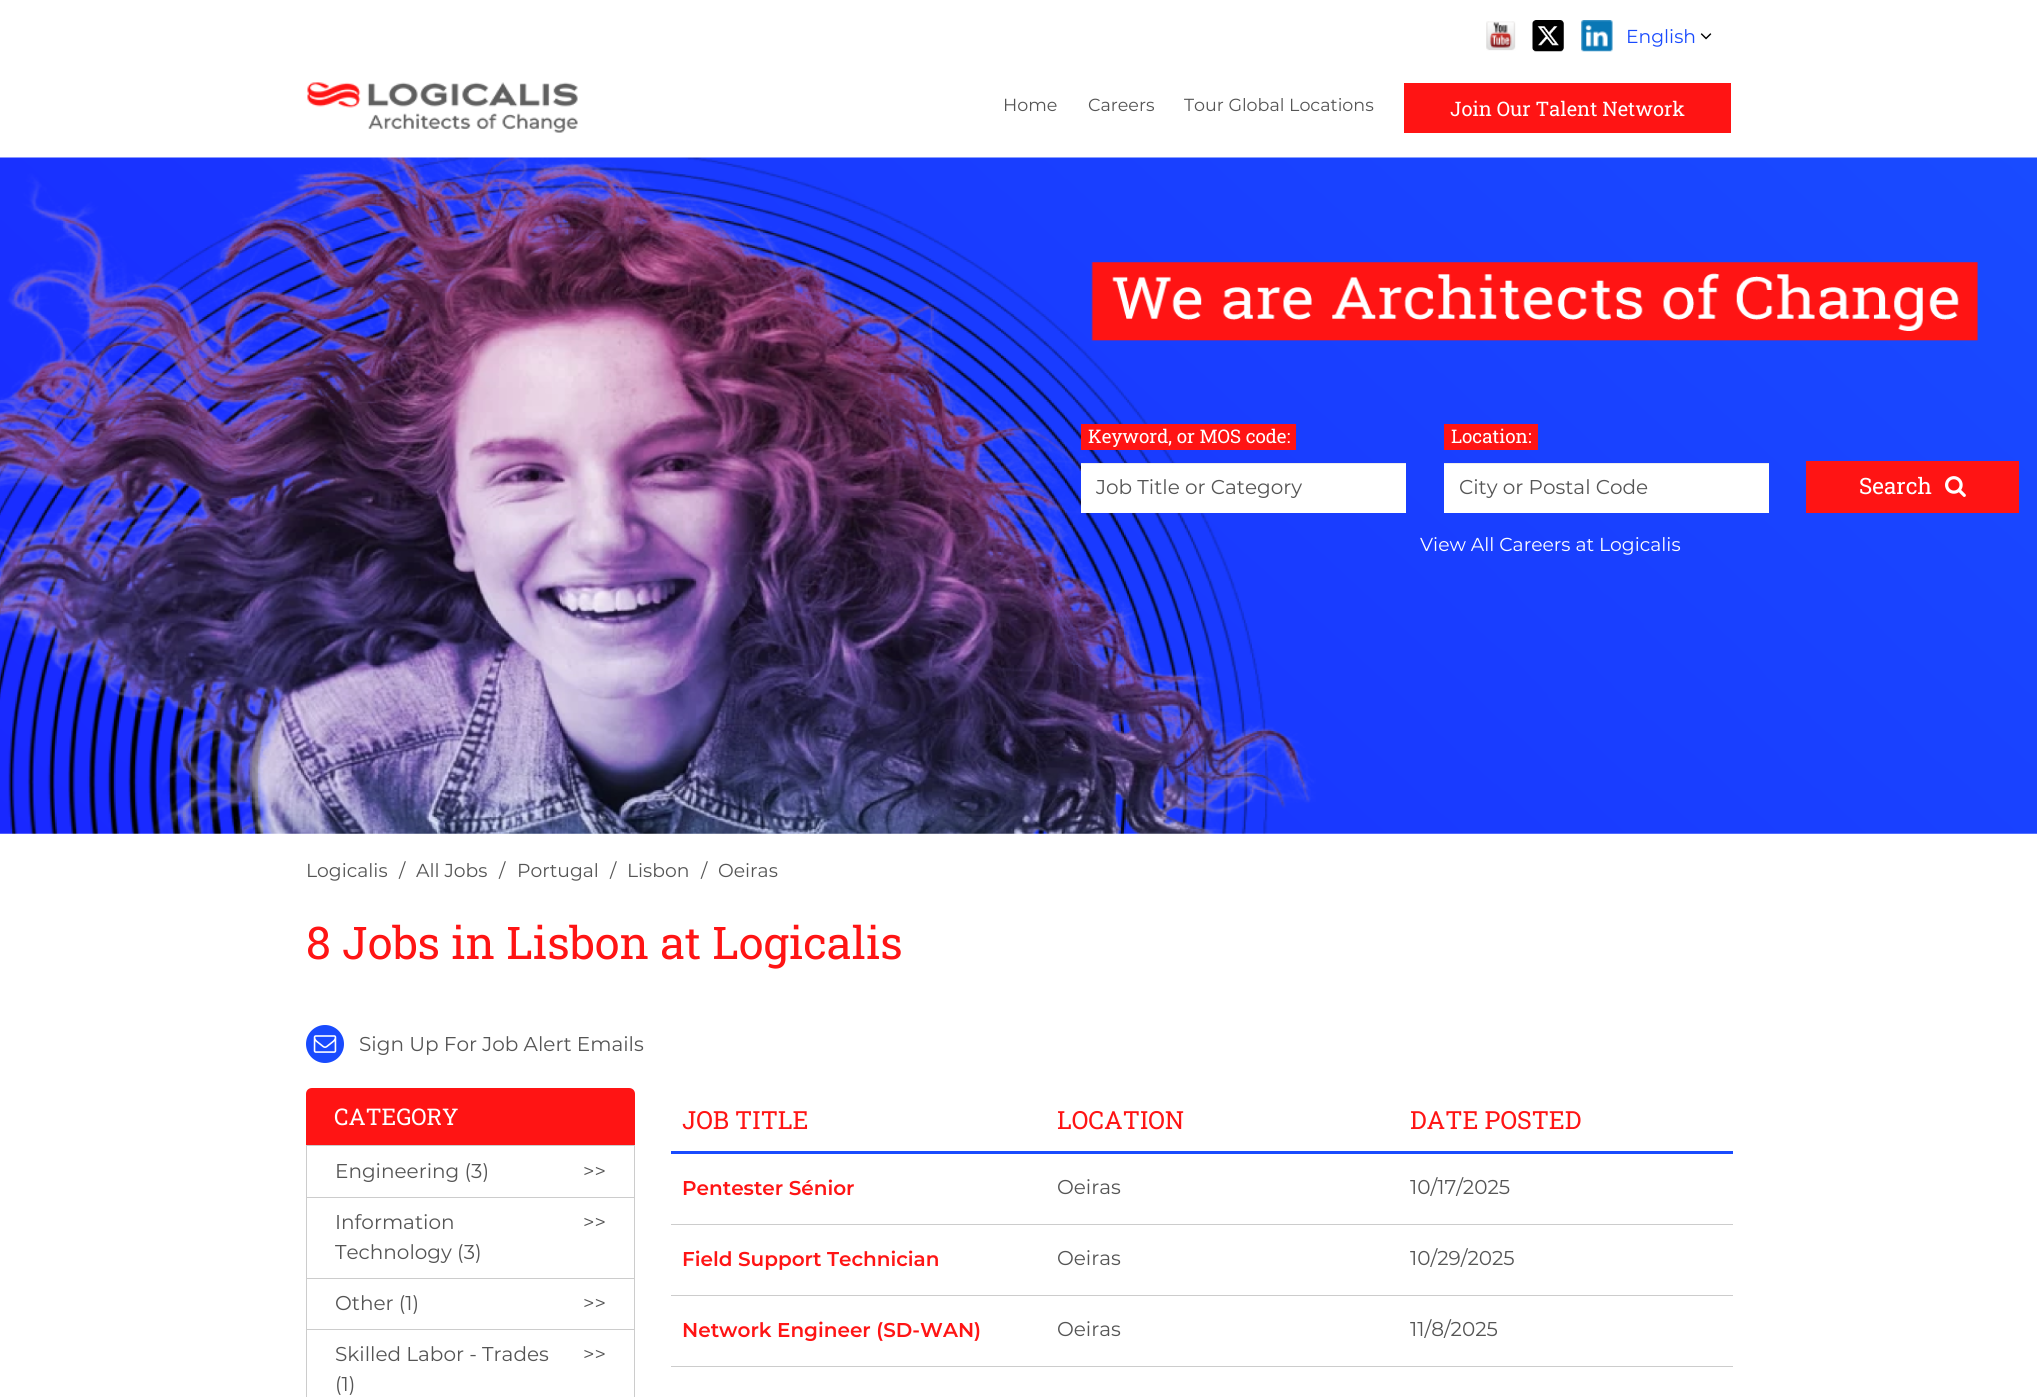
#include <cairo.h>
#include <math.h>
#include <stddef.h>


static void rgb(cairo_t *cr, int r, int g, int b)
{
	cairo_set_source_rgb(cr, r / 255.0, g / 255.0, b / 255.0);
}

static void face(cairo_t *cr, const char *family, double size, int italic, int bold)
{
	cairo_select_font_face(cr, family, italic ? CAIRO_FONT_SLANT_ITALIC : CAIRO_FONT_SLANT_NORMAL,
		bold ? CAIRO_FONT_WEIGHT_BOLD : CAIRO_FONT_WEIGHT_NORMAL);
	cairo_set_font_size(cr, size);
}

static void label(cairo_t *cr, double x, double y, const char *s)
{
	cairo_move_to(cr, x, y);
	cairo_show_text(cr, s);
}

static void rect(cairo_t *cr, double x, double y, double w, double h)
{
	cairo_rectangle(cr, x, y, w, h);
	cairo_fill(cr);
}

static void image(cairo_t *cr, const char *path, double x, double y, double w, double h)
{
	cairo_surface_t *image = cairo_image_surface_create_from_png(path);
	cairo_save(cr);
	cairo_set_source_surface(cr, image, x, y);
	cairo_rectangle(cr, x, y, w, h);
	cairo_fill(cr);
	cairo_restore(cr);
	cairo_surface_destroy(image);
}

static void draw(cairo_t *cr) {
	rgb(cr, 255, 255, 255);
	cairo_paint(cr);
	image(cr, "image0.png", 1486, 21, 30, 30);
	image(cr, "image1.png", 1532, 20, 32, 32);
	image(cr, "image2.png", 1581, 20, 32, 32);
	face(cr, "Montserrat", 18.75, 0, 0);
	rgb(cr, 25, 75, 254);
	label(cr, 1626, 43, "English");
	image(cr, "image3.png", 1700, 33, 12, 7);
	image(cr, "image4.png", 307, 82, 271, 51);
	face(cr, "Montserrat", 17.5, 0, 0);
	rgb(cr, 85, 85, 85);
	label(cr, 1003, 111, "Home");
	label(cr, 1088, 111, "Careers");
	label(cr, 1184, 111, "Tour Global Locations");
	rgb(cr, 255, 20, 20);
	rect(cr, 1404, 83, 327, 50);
	face(cr, "Roboto Slab", 20, 0, 0);
	rgb(cr, 255, 255, 255);
	label(cr, 1450, 116, "Join Our Talent Network");
	image(cr, "image5.png", 0, 157, 2037, 677);
	rgb(cr, 255, 20, 20);
	rect(cr, 1081, 424, 215, 26);
	face(cr, "Roboto Slab", 18.75, 0, 0);
	rgb(cr, 255, 255, 255);
	label(cr, 1088, 443, "Keyword, or MOS code:");
	rect(cr, 1081, 464, 325, 49);
	rgb(cr, 236, 236, 236);
	rect(cr, 1081, 463, 325, 1);
	face(cr, "Montserrat", 20, 0, 0);
	rgb(cr, 85, 85, 85);
	label(cr, 1096, 494, "Job Title or Category");
	rgb(cr, 255, 20, 20);
	rect(cr, 1444, 424, 94, 26);
	face(cr, "Roboto Slab", 18.75, 0, 0);
	rgb(cr, 255, 255, 255);
	label(cr, 1451, 443, "Location:");
	rect(cr, 1444, 464, 325, 49);
	rgb(cr, 236, 236, 236);
	rect(cr, 1444, 463, 325, 1);
	face(cr, "Montserrat", 20, 0, 0);
	rgb(cr, 85, 85, 85);
	label(cr, 1459, 494, "City or Postal Code");
	rgb(cr, 255, 20, 20);
	rect(cr, 1806, 461, 213, 52);
	face(cr, "Roboto Slab", 22.5, 0, 0);
	rgb(cr, 255, 255, 255);
	label(cr, 1859, 494, "Search");
	image(cr, "image6.png", 1945, 476, 21, 21);
	face(cr, "Montserrat", 18.75, 0, 0);
	label(cr, 1420, 551, "View All Careers at Logicalis");
	rgb(cr, 85, 85, 85);
	label(cr, 306, 877, "Logicalis");
	label(cr, 399, 877, "/");
	label(cr, 416, 877, "All Jobs");
	label(cr, 499, 877, "/");
	label(cr, 517, 877, "Portugal");
	label(cr, 610, 877, "/");
	label(cr, 627, 877, "Lisbon");
	label(cr, 701, 877, "/");
	label(cr, 718, 877, "Oeiras");
	face(cr, "Roboto Slab", 45, 0, 0);
	rgb(cr, 255, 20, 20);
	label(cr, 306, 959, "8 Jobs in Lisbon at Logicalis");
	rgb(cr, 25, 75, 254);
	cairo_new_path(cr);
	cairo_arc(cr, 325, 1044, 19, 0, 2 * M_PI);
	cairo_fill(cr);
	image(cr, "image7.png", 313, 1035, 24, 18);
	face(cr, "Montserrat", 20, 0, 0);
	rgb(cr, 85, 85, 85);
	label(cr, 359, 1051, "Sign Up For Job Alert Emails");
	rgb(cr, 255, 20, 20);
	cairo_new_path(cr);
	cairo_move_to(cr, 312, 1088);
	cairo_line_to(cr, 629, 1088);
	cairo_curve_to(cr, 632.5, 1088, 635, 1090.5, 635, 1094);
	cairo_line_to(cr, 635, 1145);
	cairo_line_to(cr, 306, 1145);
	cairo_line_to(cr, 306, 1094);
	cairo_curve_to(cr, 306, 1090.5, 308.5, 1088, 312, 1088);
	cairo_close_path(cr);
	cairo_fill(cr);
	face(cr, "Roboto Slab", 23, 0, 0);
	rgb(cr, 255, 255, 255);
	label(cr, 334, 1125, "CATEGORY");
	cairo_rectangle(cr, 306.5, 1145.5, 328, 52);
	rgb(cr, 204, 204, 204);
	cairo_set_line_width(cr, 1);
	cairo_stroke(cr);
	face(cr, "Montserrat", 20, 0, 0);
	rgb(cr, 85, 85, 85);
	label(cr, 335, 1178, "Engineering (3)");
	label(cr, 583, 1178, ">>");
	rgb(cr, 204, 204, 204);
	rect(cr, 634, 1198, 1, 199);
	rect(cr, 306, 1278, 329, 1);
	rect(cr, 306, 1198, 1, 81);
	rgb(cr, 85, 85, 85);
	label(cr, 335, 1229, "Information");
	label(cr, 335, 1259, "Technology (3)");
	label(cr, 583, 1229, ">>");
	rgb(cr, 204, 204, 204);
	rect(cr, 306, 1329, 329, 1);
	rect(cr, 306, 1279, 1, 118);
	rgb(cr, 85, 85, 85);
	label(cr, 335, 1310, "Other (1)");
	label(cr, 583, 1310, ">>");
	label(cr, 335, 1361, "Skilled Labor - Trades");
	label(cr, 335, 1391, "(1)");
	label(cr, 583, 1361, ">>");
	rgb(cr, 25, 75, 254);
	rect(cr, 671, 1151, 1062, 3);
	face(cr, "Roboto Slab", 25, 0, 0);
	rgb(cr, 255, 20, 20);
	label(cr, 682, 1129, "JOB TITLE");
	label(cr, 1057, 1129, "LOCATION");
	label(cr, 1410, 1129, "DATE POSTED");
	face(cr, "Montserrat SemiBold", 20, 0, 0);
	label(cr, 682, 1195, "Pentester Sénior");
	face(cr, "Montserrat", 20, 0, 0);
	rgb(cr, 85, 85, 85);
	label(cr, 1057, 1194, "Oeiras");
	label(cr, 1410, 1194, "10/17/2025");
	rgb(cr, 204, 204, 204);
	rect(cr, 671, 1224, 1062, 1);
	face(cr, "Montserrat SemiBold", 20, 0, 0);
	rgb(cr, 255, 20, 20);
	label(cr, 682, 1266, "Field Support Technician");
	face(cr, "Montserrat", 20, 0, 0);
	rgb(cr, 85, 85, 85);
	label(cr, 1057, 1265, "Oeiras");
	label(cr, 1410, 1265, "10/29/2025");
	rgb(cr, 204, 204, 204);
	rect(cr, 671, 1295, 1062, 1);
	face(cr, "Montserrat SemiBold", 20, 0, 0);
	rgb(cr, 255, 20, 20);
	label(cr, 682, 1337, "Network Engineer (SD-WAN)");
	face(cr, "Montserrat", 20, 0, 0);
	rgb(cr, 85, 85, 85);
	label(cr, 1057, 1336, "Oeiras");
	label(cr, 1410, 1336, "11/8/2025");
	rgb(cr, 204, 204, 204);
	rect(cr, 671, 1366, 1062, 1);
}

int main(void) {
	cairo_surface_t *surface = cairo_image_surface_create(CAIRO_FORMAT_RGB24, 2037, 1397);
	cairo_t *cr = cairo_create(surface);
	cairo_font_options_t *options = cairo_font_options_create();
	cairo_font_options_set_hint_metrics(options, CAIRO_HINT_METRICS_OFF);
	cairo_font_options_set_hint_style(options, CAIRO_HINT_STYLE_NONE);
	cairo_set_font_options(cr, options);
	cairo_set_miter_limit(cr, 4);
	draw(cr);
	cairo_surface_write_to_png(surface, "render.png");
	cairo_font_options_destroy(options);
	cairo_destroy(cr);
	cairo_surface_destroy(surface);
	return 0;
}
